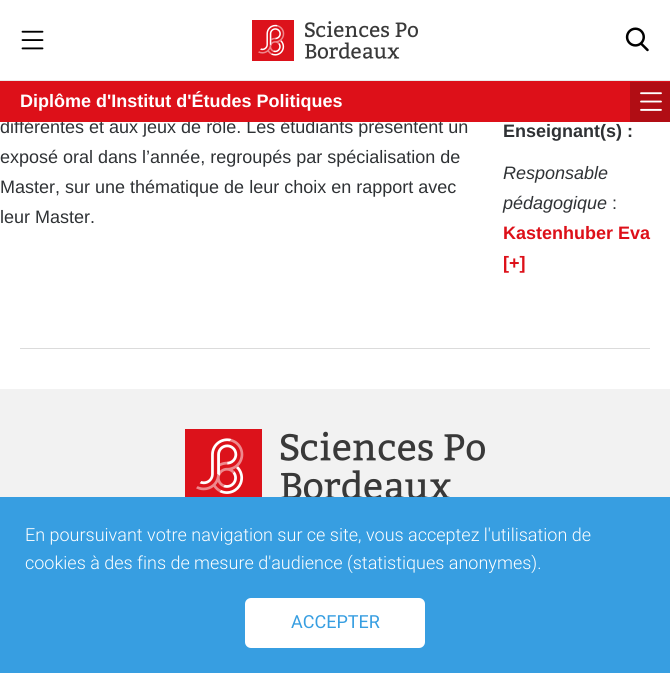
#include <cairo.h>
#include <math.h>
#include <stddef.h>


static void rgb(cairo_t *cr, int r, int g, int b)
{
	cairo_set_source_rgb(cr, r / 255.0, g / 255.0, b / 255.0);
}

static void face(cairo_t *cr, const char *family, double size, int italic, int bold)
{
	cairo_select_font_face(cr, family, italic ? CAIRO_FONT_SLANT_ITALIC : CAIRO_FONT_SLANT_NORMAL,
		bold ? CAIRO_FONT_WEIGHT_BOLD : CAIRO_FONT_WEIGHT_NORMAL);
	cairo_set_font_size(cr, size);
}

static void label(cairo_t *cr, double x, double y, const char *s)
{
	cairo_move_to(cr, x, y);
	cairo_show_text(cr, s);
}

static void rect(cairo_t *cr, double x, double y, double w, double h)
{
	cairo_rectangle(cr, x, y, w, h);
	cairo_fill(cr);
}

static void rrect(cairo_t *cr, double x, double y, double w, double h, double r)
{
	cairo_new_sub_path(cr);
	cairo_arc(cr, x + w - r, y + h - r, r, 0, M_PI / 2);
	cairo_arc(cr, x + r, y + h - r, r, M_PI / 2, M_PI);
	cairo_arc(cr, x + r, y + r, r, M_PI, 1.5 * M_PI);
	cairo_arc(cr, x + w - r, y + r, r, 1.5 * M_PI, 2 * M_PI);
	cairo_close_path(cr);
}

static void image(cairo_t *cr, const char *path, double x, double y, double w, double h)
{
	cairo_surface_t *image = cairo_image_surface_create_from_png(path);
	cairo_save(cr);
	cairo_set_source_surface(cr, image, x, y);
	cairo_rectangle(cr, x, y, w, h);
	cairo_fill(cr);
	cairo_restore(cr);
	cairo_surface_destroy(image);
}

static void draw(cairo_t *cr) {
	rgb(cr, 255, 255, 255);
	cairo_paint(cr);
	rgb(cr, 234, 234, 234);
	rect(cr, 0, 80, 670, 1);
	image(cr, "image0.png", 21, 30, 23, 20);
	image(cr, "image1.png", 252, 20, 166, 41);
	image(cr, "image2.png", 625, 27, 24, 25);
	face(cr, "Liberation Sans", 18, 0, 0);
	rgb(cr, 47, 50, 53);
	label(cr, 0, 133, "différentes et aux jeux de rôle. Les étudiants présentent un");
	rgb(cr, 221, 16, 25);
	rect(cr, 0, 81, 670, 41);
	face(cr, "Liberation Sans", 18, 0, 1);
	rgb(cr, 255, 255, 255);
	label(cr, 20, 107, "Diplôme d'Institut d'Études Politiques");
	rgb(cr, 177, 13, 20);
	rect(cr, 630, 82, 40, 40);
	image(cr, "image3.png", 640, 92, 22, 19);
	face(cr, "Liberation Sans", 18, 0, 0);
	rgb(cr, 47, 50, 53);
	label(cr, 0, 163, "exposé oral dans l’année, regroupés par spécialisation de");
	label(cr, 0, 193, "Master, sur une thématique de leur choix en rapport avec");
	label(cr, 0, 223, "leur Master.");
	face(cr, "Liberation Sans", 18, 0, 1);
	label(cr, 503, 137, "Enseignant(s) :");
	face(cr, "Liberation Sans", 18, 1, 0);
	label(cr, 503, 179, "Responsable");
	label(cr, 503, 209, "pédagogique");
	face(cr, "Liberation Sans", 18, 0, 0);
	label(cr, 612, 209, ":");
	face(cr, "Liberation Sans", 18, 0, 1);
	rgb(cr, 221, 16, 25);
	label(cr, 503, 239, "Kastenhuber Eva");
	label(cr, 503, 269, "[+]");
	rgb(cr, 219, 219, 219);
	rect(cr, 20, 348, 630, 1);
	rgb(cr, 242, 242, 242);
	rect(cr, 0, 389, 670, 108);
	image(cr, "image4.png", 185, 429, 300, 68);
	rgb(cr, 55, 158, 225);
	rect(cr, 0, 497, 670, 176);
	face(cr, "Heebo Light", 18, 0, 0);
	rgb(cr, 255, 255, 255);
	label(cr, 25, 541, "En poursuivant votre navigation sur ce site, vous acceptez l'utilisation de");
	label(cr, 25, 569, "cookies à des fins de mesure d'audience (statistiques anonymes).");
	rrect(cr, 245, 598, 180, 50, 6);
	cairo_fill(cr);
	face(cr, "Heebo", 18, 0, 0);
	rgb(cr, 55, 158, 225);
	label(cr, 291, 628, "ACCEPTER");
}

int main(void) {
	cairo_surface_t *surface = cairo_image_surface_create(CAIRO_FORMAT_RGB24, 670, 673);
	cairo_t *cr = cairo_create(surface);
	cairo_font_options_t *options = cairo_font_options_create();
	cairo_font_options_set_hint_metrics(options, CAIRO_HINT_METRICS_OFF);
	cairo_font_options_set_hint_style(options, CAIRO_HINT_STYLE_NONE);
	cairo_set_font_options(cr, options);
	cairo_set_miter_limit(cr, 4);
	draw(cr);
	cairo_surface_write_to_png(surface, "render.png");
	cairo_font_options_destroy(options);
	cairo_destroy(cr);
	cairo_surface_destroy(surface);
	return 0;
}
